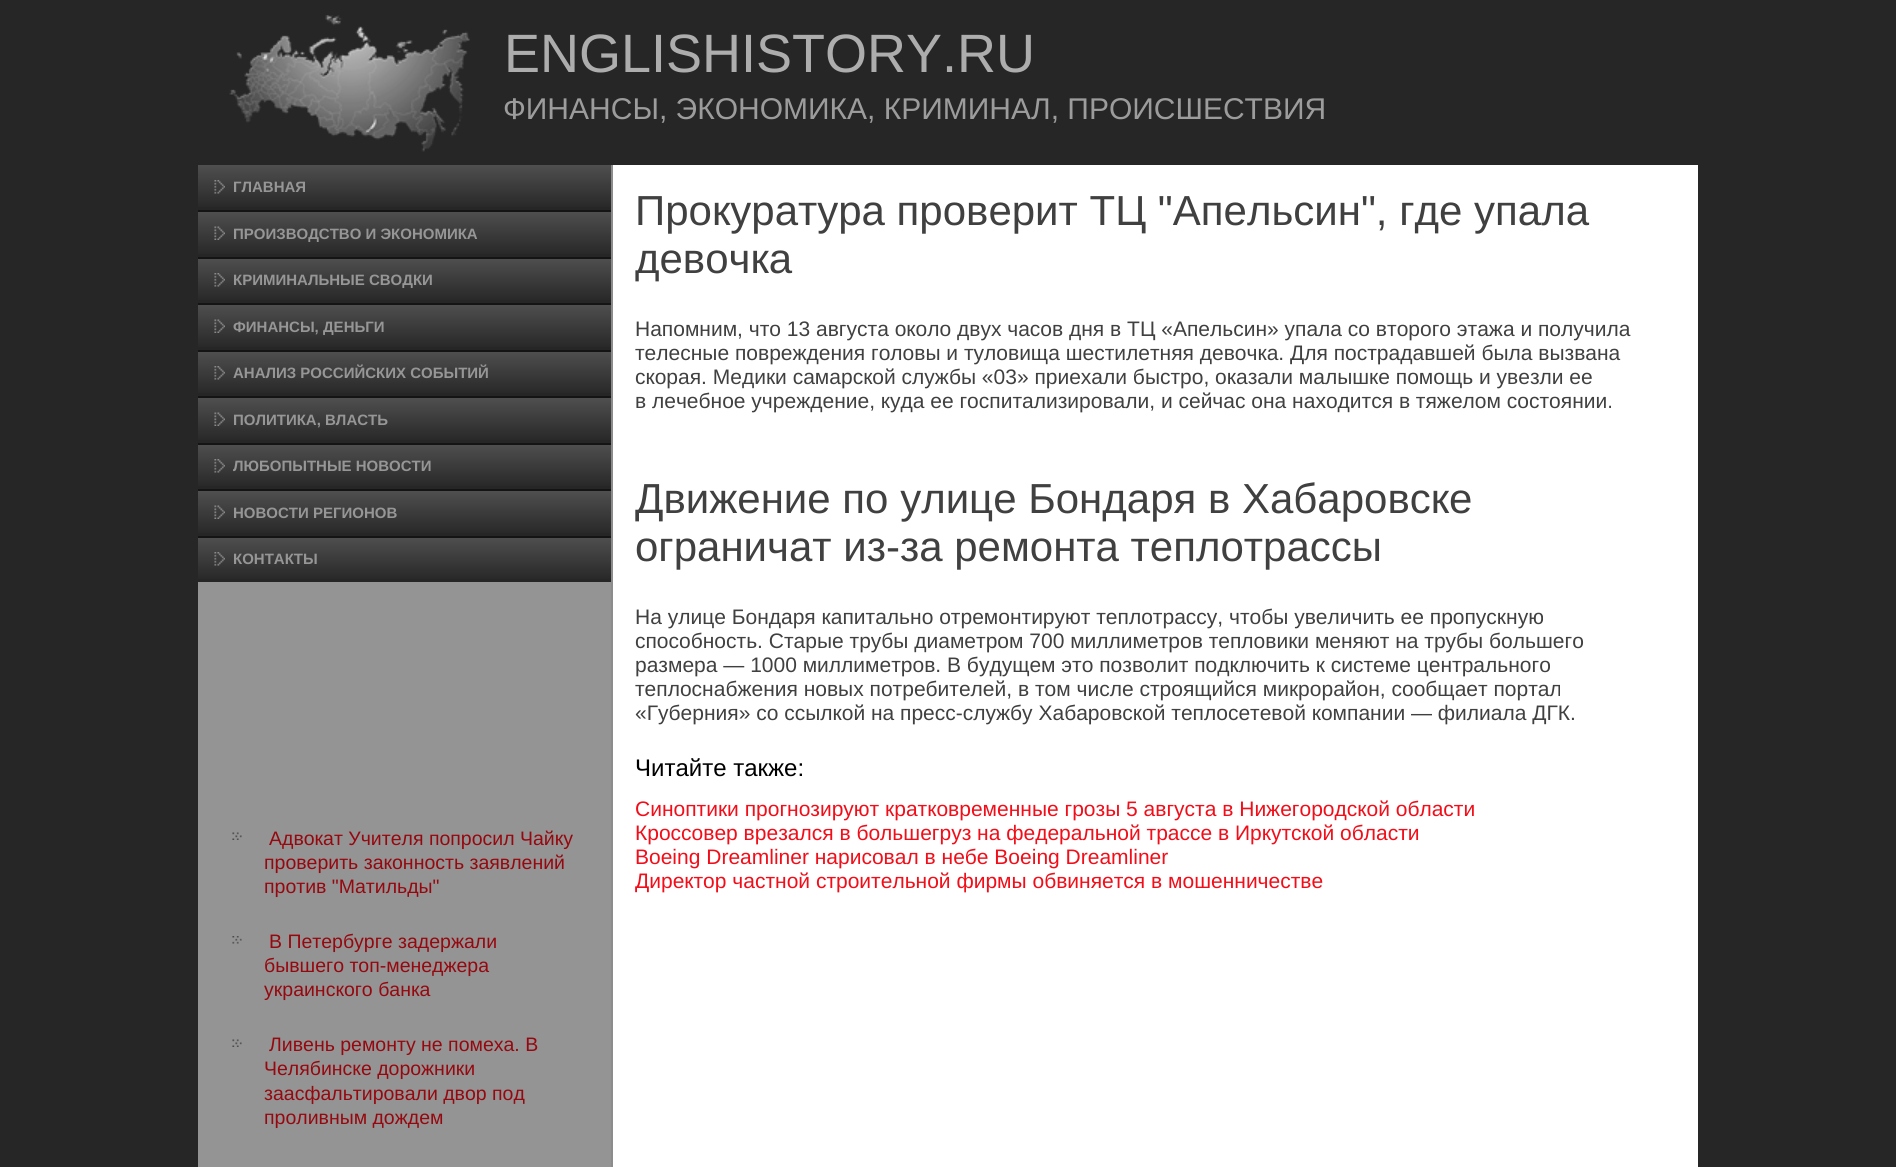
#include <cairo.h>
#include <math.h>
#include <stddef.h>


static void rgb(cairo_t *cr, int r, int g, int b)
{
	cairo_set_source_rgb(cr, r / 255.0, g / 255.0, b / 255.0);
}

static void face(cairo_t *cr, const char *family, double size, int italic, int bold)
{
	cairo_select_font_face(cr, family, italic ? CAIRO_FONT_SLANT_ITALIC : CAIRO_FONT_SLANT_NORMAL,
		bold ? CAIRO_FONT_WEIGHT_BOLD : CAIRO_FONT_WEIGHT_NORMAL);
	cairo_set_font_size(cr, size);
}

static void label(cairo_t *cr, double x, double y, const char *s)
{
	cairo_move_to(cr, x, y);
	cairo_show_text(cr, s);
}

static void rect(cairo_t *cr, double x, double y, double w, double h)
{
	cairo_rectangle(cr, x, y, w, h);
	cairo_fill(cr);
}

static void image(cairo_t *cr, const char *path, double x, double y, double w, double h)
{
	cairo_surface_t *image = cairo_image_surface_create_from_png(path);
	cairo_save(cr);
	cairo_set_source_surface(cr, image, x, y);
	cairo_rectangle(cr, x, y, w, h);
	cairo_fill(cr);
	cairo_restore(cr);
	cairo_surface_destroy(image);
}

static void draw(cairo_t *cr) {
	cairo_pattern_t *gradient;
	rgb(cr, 38, 38, 38);
	cairo_paint(cr);
	image(cr, "image0.png", 229, 15, 241, 137);
	face(cr, "Liberation Sans", 54, 0, 0);
	rgb(cr, 173, 173, 173);
	label(cr, 504, 72, "ENGLISHISTORY.RU");
	face(cr, "Liberation Sans", 30, 0, 0);
	rgb(cr, 156, 156, 156);
	label(cr, 503, 119, "ФИНАНСЫ, ЭКОНОМИКА, КРИМИНАЛ, ПРОИСШЕСТВИЯ");
	rgb(cr, 255, 255, 255);
	rect(cr, 613, 165, 1085, 1002);
	rgb(cr, 148, 148, 148);
	rect(cr, 198, 582, 413, 585);
	rgb(cr, 140, 140, 140);
	rect(cr, 611, 165, 2, 1002);
	gradient = cairo_pattern_create_linear(404, 165, 404, 210);
	cairo_pattern_add_color_stop_rgba(gradient, 0, 0.31, 0.31, 0.31, 1);
	cairo_pattern_add_color_stop_rgba(gradient, 1, 0.149, 0.149, 0.149, 1);
	cairo_set_source(cr, gradient);
	cairo_pattern_destroy(gradient);
	rect(cr, 198, 165, 413, 42);
	image(cr, "image1.png", 214, 180, 11, 14);
	face(cr, "Liberation Sans", 15, 0, 1);
	rgb(cr, 150, 150, 150);
	label(cr, 233, 192, "ГЛАВНАЯ");
	rgb(cr, 20, 20, 20);
	rect(cr, 198, 210, 413, 2);
	gradient = cairo_pattern_create_linear(404, 211, 404, 257);
	cairo_pattern_add_color_stop_rgba(gradient, 0, 0.31, 0.31, 0.31, 1);
	cairo_pattern_add_color_stop_rgba(gradient, 1, 0.149, 0.149, 0.149, 1);
	cairo_set_source(cr, gradient);
	cairo_pattern_destroy(gradient);
	rect(cr, 198, 212, 413, 42);
	image(cr, "image2.png", 214, 226, 11, 14);
	rgb(cr, 150, 150, 150);
	label(cr, 233, 239, "ПРОИЗВΟДСТВО И ЭКОНОМИКА");
	rgb(cr, 20, 20, 20);
	rect(cr, 198, 257, 413, 2);
	gradient = cairo_pattern_create_linear(404, 258, 404, 303);
	cairo_pattern_add_color_stop_rgba(gradient, 0, 0.31, 0.31, 0.31, 1);
	cairo_pattern_add_color_stop_rgba(gradient, 1, 0.149, 0.149, 0.149, 1);
	cairo_set_source(cr, gradient);
	cairo_pattern_destroy(gradient);
	rect(cr, 198, 259, 413, 41);
	image(cr, "image1.png", 214, 273, 11, 14);
	rgb(cr, 150, 150, 150);
	label(cr, 233, 285, "КРИМИНАЛЬНЫЕ СВОДКИ");
	rgb(cr, 20, 20, 20);
	rect(cr, 198, 303, 413, 2);
	gradient = cairo_pattern_create_linear(404, 304, 404, 350);
	cairo_pattern_add_color_stop_rgba(gradient, 0, 0.31, 0.31, 0.31, 1);
	cairo_pattern_add_color_stop_rgba(gradient, 1, 0.149, 0.149, 0.149, 1);
	cairo_set_source(cr, gradient);
	cairo_pattern_destroy(gradient);
	rect(cr, 198, 305, 413, 42);
	image(cr, "image2.png", 214, 319, 11, 14);
	rgb(cr, 150, 150, 150);
	label(cr, 233, 332, "ФИНАНСЫ, ДЕНЬГИ");
	rgb(cr, 20, 20, 20);
	rect(cr, 198, 350, 413, 2);
	gradient = cairo_pattern_create_linear(404, 351, 404, 396);
	cairo_pattern_add_color_stop_rgba(gradient, 0, 0.31, 0.31, 0.31, 1);
	cairo_pattern_add_color_stop_rgba(gradient, 1, 0.149, 0.149, 0.149, 1);
	cairo_set_source(cr, gradient);
	cairo_pattern_destroy(gradient);
	rect(cr, 198, 352, 413, 41);
	image(cr, "image1.png", 214, 366, 11, 14);
	rgb(cr, 150, 150, 150);
	label(cr, 233, 378, "АНАЛИЗ РОССИЙСКИХ СОБЫТИЙ");
	rgb(cr, 20, 20, 20);
	rect(cr, 198, 396, 413, 2);
	gradient = cairo_pattern_create_linear(404, 398, 404, 443);
	cairo_pattern_add_color_stop_rgba(gradient, 0, 0.31, 0.31, 0.31, 1);
	cairo_pattern_add_color_stop_rgba(gradient, 1, 0.149, 0.149, 0.149, 1);
	cairo_set_source(cr, gradient);
	cairo_pattern_destroy(gradient);
	rect(cr, 198, 398, 413, 42);
	image(cr, "image3.png", 214, 412, 11, 14);
	rgb(cr, 150, 150, 150);
	label(cr, 233, 425, "ПОЛИТИКА, ВЛАСТЬ");
	rgb(cr, 20, 20, 20);
	rect(cr, 198, 443, 413, 2);
	gradient = cairo_pattern_create_linear(404, 444, 404, 489);
	cairo_pattern_add_color_stop_rgba(gradient, 0, 0.31, 0.31, 0.31, 1);
	cairo_pattern_add_color_stop_rgba(gradient, 1, 0.149, 0.149, 0.149, 1);
	cairo_set_source(cr, gradient);
	cairo_pattern_destroy(gradient);
	rect(cr, 198, 445, 413, 41);
	image(cr, "image1.png", 214, 459, 11, 14);
	rgb(cr, 150, 150, 150);
	label(cr, 233, 471, "ЛЮБОПЫТНЫЕ НОВОСТИ");
	rgb(cr, 20, 20, 20);
	rect(cr, 198, 489, 413, 2);
	gradient = cairo_pattern_create_linear(404, 491, 404, 536);
	cairo_pattern_add_color_stop_rgba(gradient, 0, 0.31, 0.31, 0.31, 1);
	cairo_pattern_add_color_stop_rgba(gradient, 1, 0.149, 0.149, 0.149, 1);
	cairo_set_source(cr, gradient);
	cairo_pattern_destroy(gradient);
	rect(cr, 198, 491, 413, 42);
	image(cr, "image3.png", 214, 505, 11, 14);
	rgb(cr, 150, 150, 150);
	label(cr, 233, 518, "НОВОСТИ РЕГИОНОВ");
	rgb(cr, 20, 20, 20);
	rect(cr, 198, 536, 413, 2);
	gradient = cairo_pattern_create_linear(404, 537, 404, 582);
	cairo_pattern_add_color_stop_rgba(gradient, 0, 0.31, 0.31, 0.31, 1);
	cairo_pattern_add_color_stop_rgba(gradient, 1, 0.149, 0.149, 0.149, 1);
	cairo_set_source(cr, gradient);
	cairo_pattern_destroy(gradient);
	rect(cr, 198, 538, 413, 41);
	image(cr, "image1.png", 214, 552, 11, 14);
	rgb(cr, 150, 150, 150);
	label(cr, 233, 564, "КОНТАКТЫ");
	image(cr, "image4.png", 232, 832, 10, 8);
	face(cr, "Liberation Sans", 19.5, 0, 0);
	rgb(cr, 150, 8, 15);
	label(cr, 269, 845, "Адвокат Учителя попросил Чайку");
	label(cr, 264, 869, "проверить законность заявлений");
	label(cr, 264, 893, "против \"Матильды\"");
	image(cr, "image5.png", 232, 936, 10, 8);
	label(cr, 269, 948, "В Петербурге задержали");
	label(cr, 264, 972, "бывшего топ-менеджера");
	label(cr, 264, 996, "украинского банка");
	image(cr, "image4.png", 232, 1039, 10, 8);
	label(cr, 269, 1051, "Ливень ремонту не помеха. В");
	label(cr, 264, 1075, "Челябинске дорожники");
	label(cr, 264, 1100, "заасфальтировали двор под");
	label(cr, 264, 1124, "проливным дождем");
	face(cr, "Liberation Sans", 42, 0, 0);
	rgb(cr, 64, 64, 64);
	label(cr, 635, 225, "Прокуратура проверит ТЦ \"Апельсин\", где упала");
	label(cr, 635, 273, "девочка");
	face(cr, "Liberation Sans", 21, 0, 0);
	label(cr, 635, 336, "Напомним, что 13 августа около двух часов дня в ТЦ «Апельсин» упала со второго этажа и получила");
	label(cr, 635, 360, "телесные повреждения головы и туловища шестилетняя девочка. Для пострадавшей была вызвана");
	label(cr, 635, 384, "скорая. Медики самарской службы «03» приехали быстро, оказали малышке помощь и увезли ее");
	label(cr, 635, 408, "в лечебное учреждение, куда ее госпитализировали, и сейчас она находится в тяжелом состоянии.");
	face(cr, "Liberation Sans", 42, 0, 0);
	label(cr, 635, 513, "Движение по улице Бондаря в Хабаровске");
	label(cr, 635, 561, "ограничат из-за ремонта теплотрассы");
	face(cr, "Liberation Sans", 21, 0, 0);
	label(cr, 635, 624, "На улице Бондаря капитально отремонтируют теплотрассу, чтобы увеличить ее пропускную");
	label(cr, 635, 648, "способность. Старые трубы диаметром 700 миллиметров тепловики меняют на трубы большего");
	label(cr, 635, 672, "размера — 1000 миллиметров. В будущем это позволит подключить к системе центрального");
	label(cr, 635, 696, "теплоснабжения новых потребителей, в том числе строящийся микрорайон, сообщает портал");
	label(cr, 635, 720, "«Губерния» со ссылкой на пресс-службу Хабаровской теплосетевой компании — филиала ДГК.");
	face(cr, "Liberation Sans", 24, 0, 0);
	rgb(cr, 0, 0, 0);
	label(cr, 635, 776, "Читайте также:");
	face(cr, "Liberation Sans", 21, 0, 0);
	rgb(cr, 242, 13, 24);
	label(cr, 635, 816, "Синоптики прогнозируют кратковременные грозы 5 августа в Нижегородской области");
	label(cr, 635, 840, "Кроссовер врезался в большегруз на федеральной трассе в Иркутской области");
	label(cr, 635, 864, "Boeing Dreamliner нарисовал в небе Boeing Dreamliner");
	label(cr, 635, 888, "Директор частной строительной фирмы обвиняется в мошенничестве");
}

int main(void) {
	cairo_surface_t *surface = cairo_image_surface_create(CAIRO_FORMAT_RGB24, 1896, 1167);
	cairo_t *cr = cairo_create(surface);
	cairo_font_options_t *options = cairo_font_options_create();
	cairo_font_options_set_hint_metrics(options, CAIRO_HINT_METRICS_OFF);
	cairo_font_options_set_hint_style(options, CAIRO_HINT_STYLE_NONE);
	cairo_set_font_options(cr, options);
	cairo_set_miter_limit(cr, 4);
	draw(cr);
	cairo_surface_write_to_png(surface, "render.png");
	cairo_font_options_destroy(options);
	cairo_destroy(cr);
	cairo_surface_destroy(surface);
	return 0;
}
